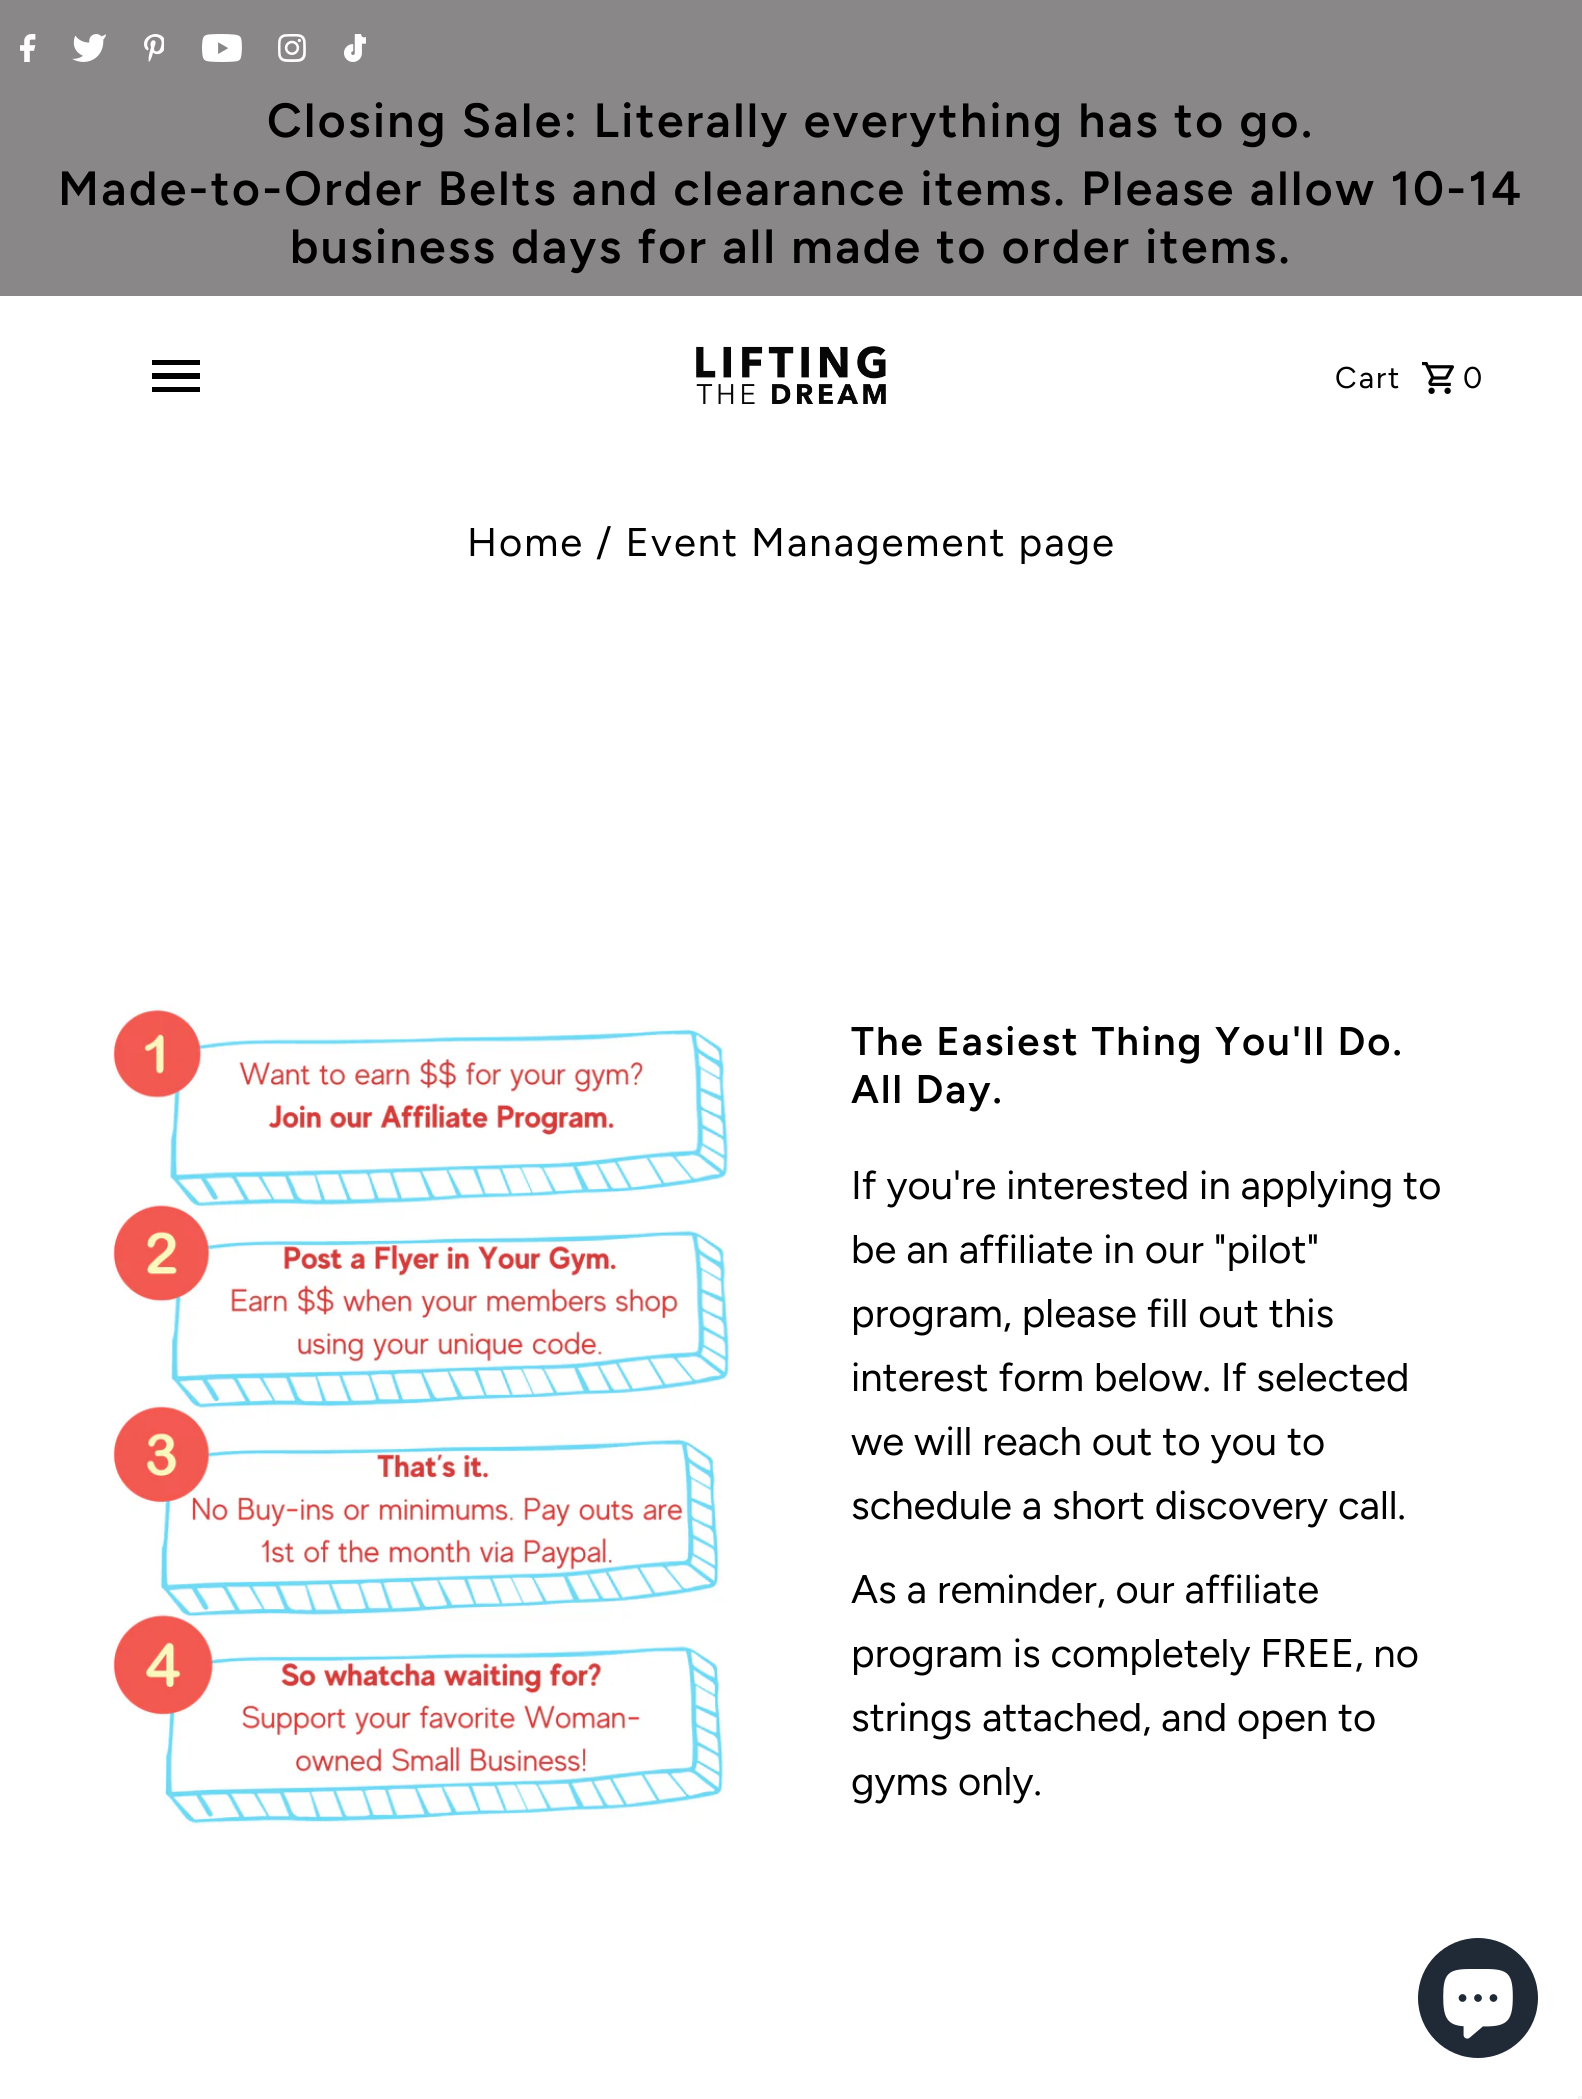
#include <cairo.h>
#include <math.h>
#include <stddef.h>


static void rgb(cairo_t *cr, int r, int g, int b)
{
	cairo_set_source_rgb(cr, r / 255.0, g / 255.0, b / 255.0);
}

static void face(cairo_t *cr, const char *family, double size, int italic, int bold)
{
	cairo_select_font_face(cr, family, italic ? CAIRO_FONT_SLANT_ITALIC : CAIRO_FONT_SLANT_NORMAL,
		bold ? CAIRO_FONT_WEIGHT_BOLD : CAIRO_FONT_WEIGHT_NORMAL);
	cairo_set_font_size(cr, size);
}

static void label(cairo_t *cr, double x, double y, const char *s)
{
	cairo_move_to(cr, x, y);
	cairo_show_text(cr, s);
}

static void tracked(cairo_t *cr, double x, double y, const char *s, double letter, double word)
{
	cairo_move_to(cr, x, y);
	while (*s) {
		char ch[5] = {0};
		int n = 0;
		do ch[n++] = *s++; while ((*s & 0xC0) == 0x80);
		cairo_show_text(cr, ch);
		cairo_rel_move_to(cr, letter + word * (*ch == ' '), 0);
	}
}

static void rect(cairo_t *cr, double x, double y, double w, double h)
{
	cairo_rectangle(cr, x, y, w, h);
	cairo_fill(cr);
}

static void image(cairo_t *cr, const char *path, double x, double y, double w, double h)
{
	cairo_surface_t *image = cairo_image_surface_create_from_png(path);
	cairo_save(cr);
	cairo_set_source_surface(cr, image, x, y);
	cairo_rectangle(cr, x, y, w, h);
	cairo_fill(cr);
	cairo_restore(cr);
	cairo_surface_destroy(image);
}

static void draw(cairo_t *cr) {
	rgb(cr, 255, 255, 255);
	cairo_paint(cr);
	rgb(cr, 137, 135, 135);
	rect(cr, 0, 0, 1582, 296);
	image(cr, "image0.png", 20, 34, 16, 28);
	image(cr, "image1.png", 72, 34, 34, 28);
	image(cr, "image2.png", 144, 34, 20, 28);
	image(cr, "image3.png", 202, 34, 40, 28);
	image(cr, "image4.png", 278, 34, 28, 28);
	image(cr, "image5.png", 344, 34, 22, 28);
	face(cr, "Figtree SemiBold", 48, 0, 0);
	rgb(cr, 0, 0, 0);
	tracked(cr, 267, 137, "Closing Sale: Literally everything has to go.", 2.4, 0);
	tracked(cr, 58, 205, "Made-to-Order Belts and clearance items. Please allow 10-14", 2.4, 0);
	tracked(cr, 290, 263, "business days for all made to order items.", 2.4, 0);
	rect(cr, 152, 387, 48, 5);
	rect(cr, 152, 373, 48, 6);
	rect(cr, 152, 360, 48, 5);
	image(cr, "image6.png", 696, 346, 190, 58);
	face(cr, "Figtree", 30, 0, 0);
	tracked(cr, 1335, 388, "Cart", 2, 0);
	image(cr, "image7.png", 1422, 362, 32, 32);
	tracked(cr, 1463, 388, "0", 2, 0);
	face(cr, "Figtree", 40, 0, 0);
	tracked(cr, 467, 556, "Home / Event Management page", 2, 0);
	image(cr, "image8.png", 113, 1004, 617, 824);
	face(cr, "Figtree SemiBold", 40, 0, 0);
	tracked(cr, 851, 1055, "The Easiest Thing You'll Do.", 2, 0);
	tracked(cr, 851, 1103, "All Day.", 2, 0);
	face(cr, "Figtree", 40, 0, 0);
	label(cr, 851, 1199, "If you're interested in applying to");
	label(cr, 851, 1263, "be an affiliate in our \"pilot\"");
	label(cr, 851, 1327, "program, please fill out this");
	label(cr, 851, 1391, "interest form below. If selected");
	label(cr, 851, 1455, "we will reach out to you to");
	label(cr, 851, 1519, "schedule a short discovery call.");
	label(cr, 851, 1603, "As a reminder, our affiliate");
	label(cr, 851, 1667, "program is completely FREE, no");
	label(cr, 851, 1731, "strings attached, and open to");
	label(cr, 851, 1795, "gyms only.");
	rgb(cr, 32, 42, 54);
	cairo_new_path(cr);
	cairo_arc(cr, 1478, 1998, 60, 0, 2 * M_PI);
	cairo_fill(cr);
	image(cr, "image9.png", 1443, 1969, 70, 70);
	rgb(cr, 245, 245, 245);
	rect(cr, 1578, 2096, 4, 3);
}

int main(void) {
	cairo_surface_t *surface = cairo_image_surface_create(CAIRO_FORMAT_RGB24, 1582, 2099);
	cairo_t *cr = cairo_create(surface);
	cairo_font_options_t *options = cairo_font_options_create();
	cairo_font_options_set_hint_metrics(options, CAIRO_HINT_METRICS_OFF);
	cairo_font_options_set_hint_style(options, CAIRO_HINT_STYLE_NONE);
	cairo_set_font_options(cr, options);
	cairo_set_miter_limit(cr, 4);
	draw(cr);
	cairo_surface_write_to_png(surface, "render.png");
	cairo_font_options_destroy(options);
	cairo_destroy(cr);
	cairo_surface_destroy(surface);
	return 0;
}
